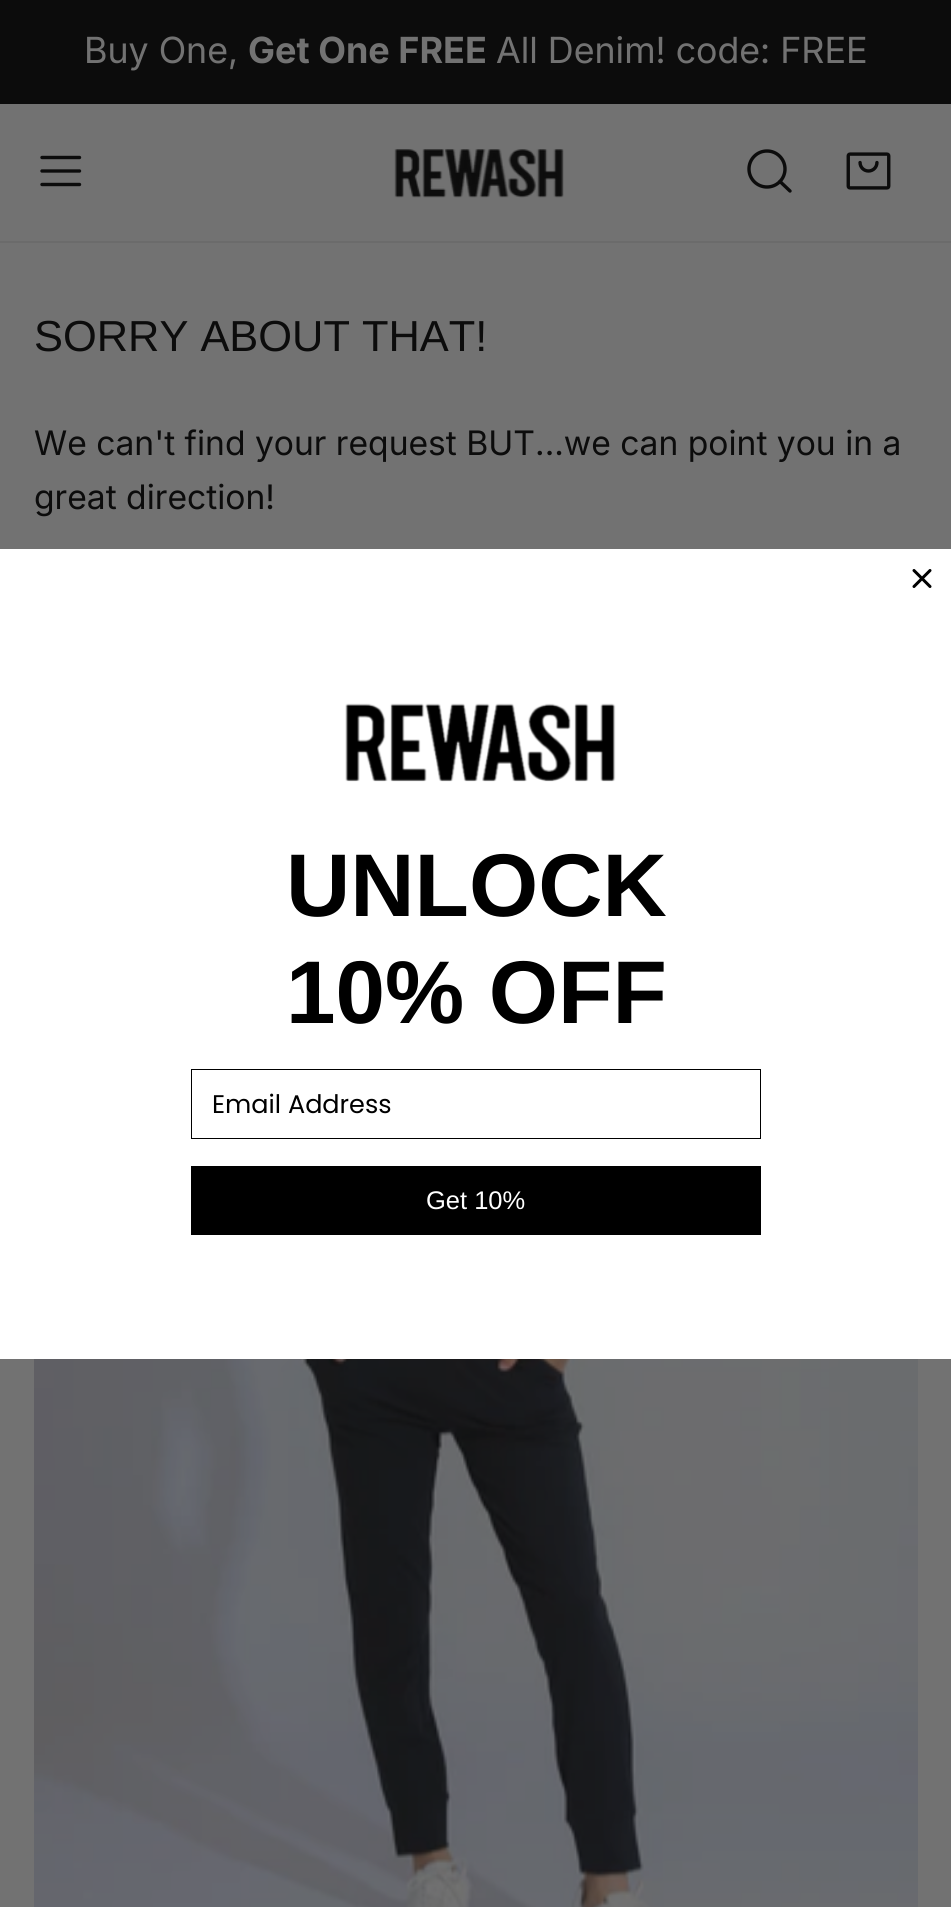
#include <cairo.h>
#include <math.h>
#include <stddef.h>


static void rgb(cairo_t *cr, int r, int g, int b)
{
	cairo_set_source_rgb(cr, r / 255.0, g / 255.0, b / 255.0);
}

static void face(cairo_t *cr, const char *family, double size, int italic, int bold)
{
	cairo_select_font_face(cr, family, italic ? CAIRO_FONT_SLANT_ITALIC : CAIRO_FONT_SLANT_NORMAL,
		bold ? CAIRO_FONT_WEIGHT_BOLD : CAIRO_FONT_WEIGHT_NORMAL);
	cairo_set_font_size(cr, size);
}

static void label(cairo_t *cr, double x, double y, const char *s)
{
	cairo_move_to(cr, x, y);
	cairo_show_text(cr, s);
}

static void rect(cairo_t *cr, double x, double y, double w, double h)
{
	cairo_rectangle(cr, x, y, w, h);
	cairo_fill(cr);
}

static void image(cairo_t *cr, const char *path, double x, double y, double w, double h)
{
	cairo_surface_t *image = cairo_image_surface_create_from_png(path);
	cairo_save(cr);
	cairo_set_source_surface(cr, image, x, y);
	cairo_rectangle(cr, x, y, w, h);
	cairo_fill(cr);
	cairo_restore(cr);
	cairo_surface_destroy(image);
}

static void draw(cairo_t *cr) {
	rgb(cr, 114, 114, 114);
	cairo_paint(cr);
	rgb(cr, 12, 12, 12);
	rect(cr, 0, 0, 951, 104);
	face(cr, "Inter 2", 36, 0, 0);
	rgb(cr, 114, 114, 114);
	label(cr, 84, 63, "Buy One,");
	face(cr, "Inter", 36, 0, 1);
	label(cr, 248, 63, "Get One FREE");
	face(cr, "Inter 2", 36, 0, 0);
	label(cr, 496, 63, "All Denim! code: FREE");
	rgb(cr, 107, 107, 107);
	rect(cr, 0, 241, 951, 2);
	cairo_new_path(cr);
	cairo_move_to(cr, 42, 171);
	cairo_line_to(cr, 79.5, 171);
	cairo_move_to(cr, 42, 157.5);
	cairo_line_to(cr, 79.5, 157.5);
	cairo_move_to(cr, 42, 184.5);
	cairo_line_to(cr, 79.5, 184.5);
	rgb(cr, 12, 12, 12);
	cairo_set_line_width(cr, 3.4);
	cairo_set_line_cap(cr, CAIRO_LINE_CAP_ROUND);
	cairo_set_line_join(cr, CAIRO_LINE_JOIN_ROUND);
	cairo_stroke(cr);
	image(cr, "image0.png", 394, 149, 170, 49);
	cairo_arc(cr, 767, 169, 18, 0, 2 * M_PI);
	cairo_set_line_cap(cr, CAIRO_LINE_CAP_BUTT);
	cairo_set_line_join(cr, CAIRO_LINE_JOIN_MITER);
	cairo_stroke(cr);
	cairo_new_path(cr);
	cairo_move_to(cr, 790, 191);
	cairo_line_to(cr, 780, 181.5);
	cairo_set_line_cap(cr, CAIRO_LINE_CAP_ROUND);
	cairo_set_line_join(cr, CAIRO_LINE_JOIN_ROUND);
	cairo_stroke(cr);
	image(cr, "image1.png", 846, 152, 45, 38);
	face(cr, "Arimo", 43.4, 0, 0);
	label(cr, 34, 351, "SORRY ABOUT THAT!");
	face(cr, "Inter", 33.75, 0, 0);
	label(cr, 34, 455, "We can't find your request BUT...we can point you in a");
	label(cr, 34, 509, "great direction!");
	image(cr, "image2.png", 34, 1359, 884, 548);
	rgb(cr, 255, 255, 255);
	rect(cr, 0, 549, 951, 810);
	cairo_new_path(cr);
	cairo_move_to(cr, 914, 570.5);
	cairo_line_to(cr, 930, 586.5);
	cairo_move_to(cr, 914, 586.5);
	cairo_line_to(cr, 930, 570.5);
	cairo_close_path(cr);
	rgb(cr, 0, 0, 0);
	cairo_set_line_width(cr, 3);
	cairo_stroke(cr);
	image(cr, "image3.png", 345, 703, 271, 79);
	face(cr, "Liberation Sans", 89, 0, 1);
	label(cr, 286, 916, "UNLOCK");
	label(cr, 286, 1023, "10% OFF");
	cairo_rectangle(cr, 191.5, 1069.5, 569, 69);
	cairo_set_line_width(cr, 1);
	cairo_set_line_cap(cr, CAIRO_LINE_CAP_BUTT);
	cairo_set_line_join(cr, CAIRO_LINE_JOIN_MITER);
	cairo_stroke(cr);
	face(cr, "Poppins", 25.5, 0, 0);
	label(cr, 212, 1113, "Email Address");
	rect(cr, 191, 1166, 570, 69);
	face(cr, "Liberation Sans", 25.5, 0, 0);
	rgb(cr, 255, 255, 255);
	label(cr, 426, 1209, "Get 10%");
}

int main(void) {
	cairo_surface_t *surface = cairo_image_surface_create(CAIRO_FORMAT_RGB24, 951, 1907);
	cairo_t *cr = cairo_create(surface);
	cairo_font_options_t *options = cairo_font_options_create();
	cairo_font_options_set_hint_metrics(options, CAIRO_HINT_METRICS_OFF);
	cairo_font_options_set_hint_style(options, CAIRO_HINT_STYLE_NONE);
	cairo_set_font_options(cr, options);
	cairo_set_miter_limit(cr, 4);
	draw(cr);
	cairo_surface_write_to_png(surface, "render.png");
	cairo_font_options_destroy(options);
	cairo_destroy(cr);
	cairo_surface_destroy(surface);
	return 0;
}
